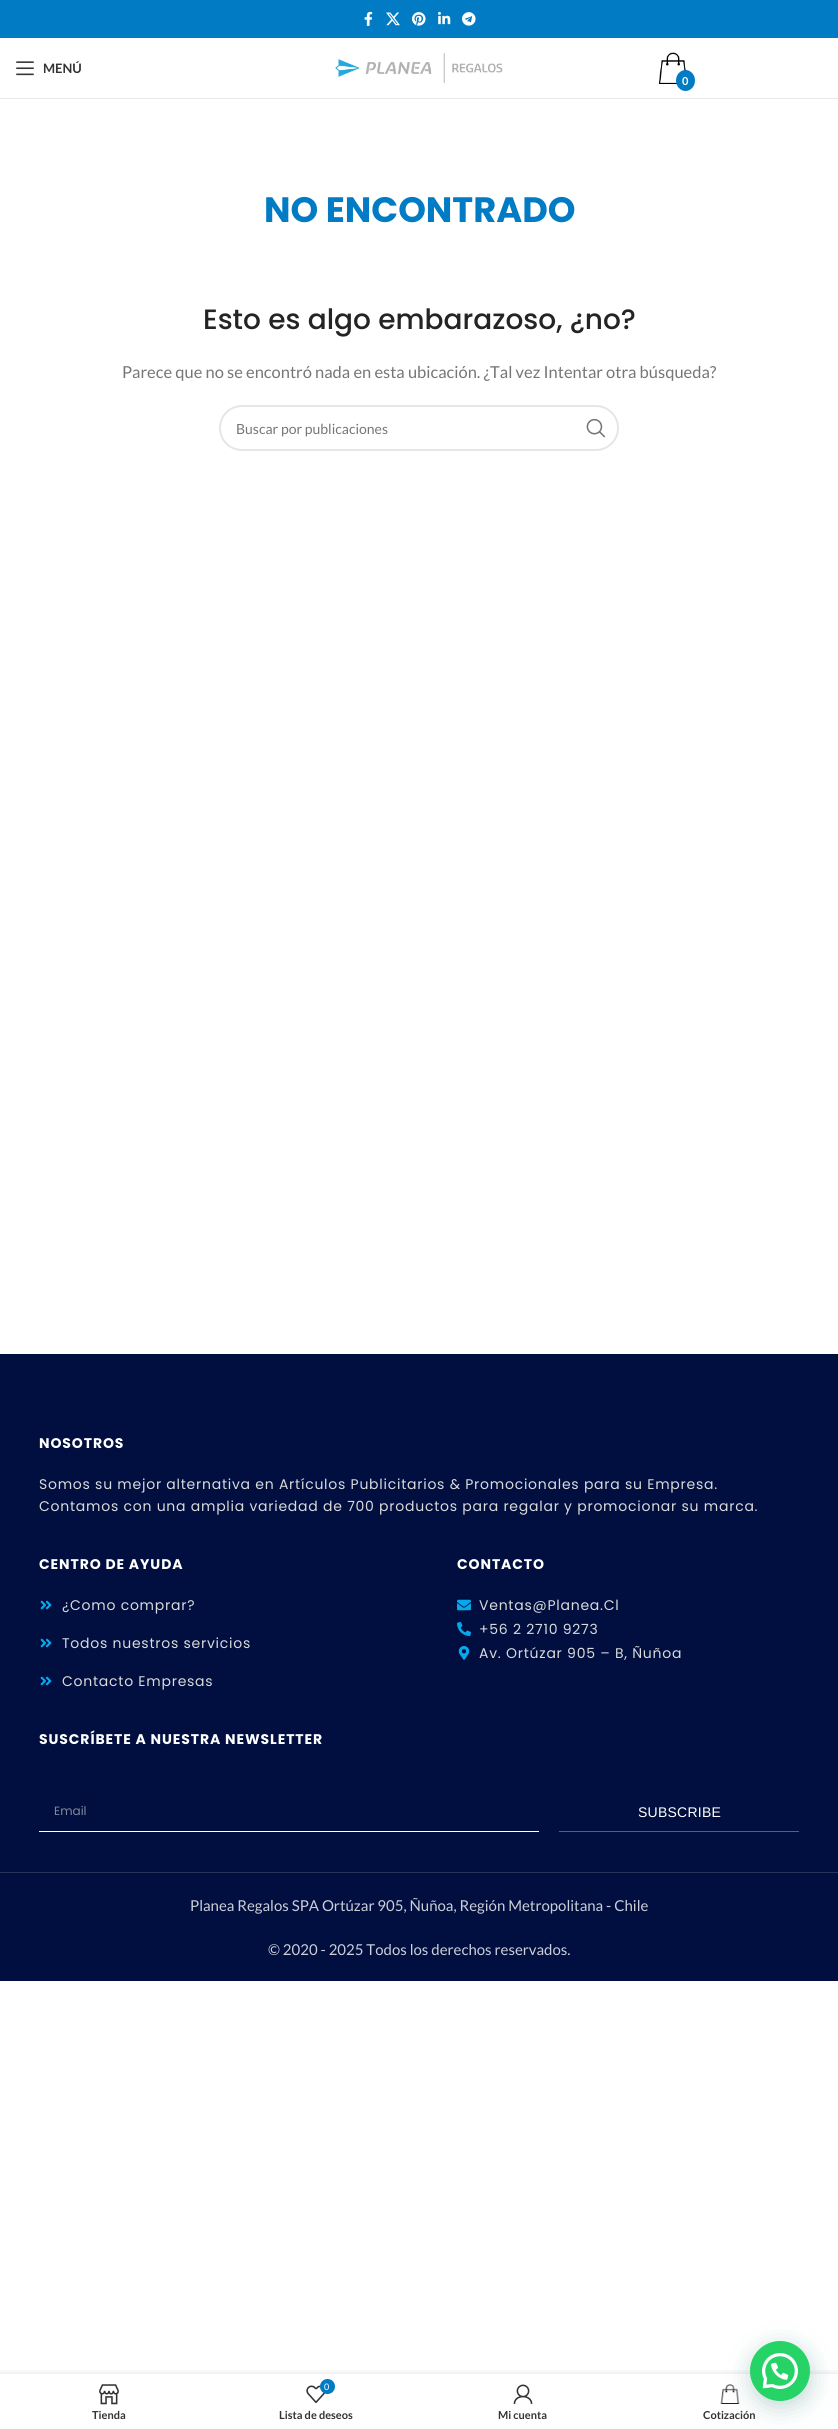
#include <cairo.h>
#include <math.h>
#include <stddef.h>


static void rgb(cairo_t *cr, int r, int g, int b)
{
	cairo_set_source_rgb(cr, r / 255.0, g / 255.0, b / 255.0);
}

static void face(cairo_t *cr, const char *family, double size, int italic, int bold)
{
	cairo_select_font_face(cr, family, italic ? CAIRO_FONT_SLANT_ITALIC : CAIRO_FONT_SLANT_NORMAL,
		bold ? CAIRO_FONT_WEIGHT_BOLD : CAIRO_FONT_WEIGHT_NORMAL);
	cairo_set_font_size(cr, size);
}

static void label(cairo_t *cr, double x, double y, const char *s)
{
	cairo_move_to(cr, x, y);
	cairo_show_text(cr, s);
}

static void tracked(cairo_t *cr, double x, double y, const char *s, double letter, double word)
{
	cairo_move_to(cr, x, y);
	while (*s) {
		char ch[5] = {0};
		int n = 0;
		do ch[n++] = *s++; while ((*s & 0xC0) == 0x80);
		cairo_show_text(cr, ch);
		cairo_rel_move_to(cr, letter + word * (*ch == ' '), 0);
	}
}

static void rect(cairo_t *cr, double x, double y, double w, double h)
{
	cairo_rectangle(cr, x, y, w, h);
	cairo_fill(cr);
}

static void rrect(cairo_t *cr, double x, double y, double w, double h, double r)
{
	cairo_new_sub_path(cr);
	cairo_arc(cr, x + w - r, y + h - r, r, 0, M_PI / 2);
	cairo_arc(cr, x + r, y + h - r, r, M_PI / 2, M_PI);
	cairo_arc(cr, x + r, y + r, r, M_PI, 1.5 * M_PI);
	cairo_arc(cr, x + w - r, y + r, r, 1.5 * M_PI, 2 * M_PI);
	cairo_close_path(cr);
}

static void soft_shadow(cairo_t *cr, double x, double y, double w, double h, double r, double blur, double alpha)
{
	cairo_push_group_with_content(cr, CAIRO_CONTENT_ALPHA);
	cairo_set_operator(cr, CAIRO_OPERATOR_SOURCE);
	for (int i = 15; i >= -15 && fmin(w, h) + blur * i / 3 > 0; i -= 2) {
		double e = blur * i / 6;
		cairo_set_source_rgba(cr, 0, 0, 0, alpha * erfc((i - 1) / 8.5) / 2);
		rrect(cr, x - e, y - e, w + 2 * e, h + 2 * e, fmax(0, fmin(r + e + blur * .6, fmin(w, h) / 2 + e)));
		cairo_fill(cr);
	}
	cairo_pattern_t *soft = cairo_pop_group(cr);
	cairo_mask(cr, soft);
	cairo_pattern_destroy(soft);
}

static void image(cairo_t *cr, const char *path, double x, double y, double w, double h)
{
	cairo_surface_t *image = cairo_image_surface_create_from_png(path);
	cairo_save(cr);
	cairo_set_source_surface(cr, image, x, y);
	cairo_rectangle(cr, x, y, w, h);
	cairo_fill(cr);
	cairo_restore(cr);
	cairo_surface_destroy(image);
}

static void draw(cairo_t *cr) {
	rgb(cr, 255, 255, 255);
	cairo_paint(cr);
	rgb(cr, 0, 123, 196);
	rect(cr, 0, 0, 838, 38);
	image(cr, "image0.png", 364, 11, 9, 15);
	image(cr, "image1.png", 386, 12, 14, 14);
	image(cr, "image2.png", 412, 12, 14, 14);
	image(cr, "image3.png", 438, 11, 13, 14);
	image(cr, "image4.png", 462, 12, 14, 14);
	rgb(cr, 232, 232, 232);
	rect(cr, 0, 98, 838, 1);
	image(cr, "image5.png", 16, 61, 18, 15);
	face(cr, "Lato", 13, 0, 1);
	rgb(cr, 51, 51, 51);
	label(cr, 43, 73, "MENÚ");
	image(cr, "image6.png", 335, 53, 168, 30);
	image(cr, "image7.png", 658, 52, 28, 32);
	rgb(cr, 0, 123, 196);
	cairo_new_path(cr);
	cairo_move_to(cr, 685.5, 70);
	cairo_curve_to(cr, 690.5, 70, 695, 74.5, 695, 80.5);
	cairo_curve_to(cr, 695, 86.5, 690.5, 91, 685.5, 91);
	cairo_curve_to(cr, 680.5, 91, 676, 86.5, 676, 80.5);
	cairo_curve_to(cr, 676, 74.5, 680.5, 70, 685.5, 70);
	cairo_close_path(cr);
	cairo_fill(cr);
	face(cr, "Lato", 11, 0, 1);
	rgb(cr, 255, 255, 255);
	label(cr, 682, 85, "0");
	face(cr, "Poppins", 35.25, 0, 1);
	rgb(cr, 0, 123, 196);
	label(cr, 264, 222, "NO ENCONTRADO");
	face(cr, "Poppins Medium", 28, 0, 0);
	rgb(cr, 36, 36, 36);
	label(cr, 203, 329, "Esto es algo embarazoso, ¿no?");
	face(cr, "Lato", 16.5, 0, 0);
	rgb(cr, 118, 118, 118);
	label(cr, 122, 378, "Parece que no se encontró nada en esta ubicación. ¿Tal vez Intentar otra búsqueda?");
	rrect(cr, 220, 406, 398, 44, 22);
	rgb(cr, 230, 230, 230);
	cairo_stroke(cr);
	face(cr, "Lato", 14, 0, 0);
	rgb(cr, 118, 118, 118);
	label(cr, 236, 434, "Buscar por publicaciones");
	image(cr, "image8.png", 586, 418, 20, 20);
	rgb(cr, 0, 15, 63);
	rect(cr, 0, 1354, 838, 627);
	face(cr, "Poppins", 14, 0, 1);
	rgb(cr, 255, 255, 255);
	tracked(cr, 39, 1448, "NOSOTROS", 0.9, 0);
	face(cr, "Poppins", 14, 0, 0);
	rgb(cr, 218, 218, 218);
	tracked(cr, 39, 1489, "Somos su mejor alternativa en Artículos Publicitarios & Promocionales para su Empresa.", 0.75, 0);
	tracked(cr, 39, 1511, "Contamos con una amplia variedad de 700 productos para regalar y promocionar su marca.", 0.75, 0);
	face(cr, "Poppins", 14, 0, 1);
	rgb(cr, 255, 255, 255);
	tracked(cr, 39, 1569, "CENTRO DE AYUDA", 0.9, 0);
	image(cr, "image9.png", 40, 1600, 12, 10);
	face(cr, "Poppins", 14, 0, 0);
	rgb(cr, 218, 218, 218);
	tracked(cr, 62, 1610, "¿Como comprar?", 0.75, 0);
	image(cr, "image9.png", 40, 1638, 12, 10);
	tracked(cr, 62, 1648, "Todos nuestros servicios", 0.75, 0);
	image(cr, "image9.png", 40, 1676, 12, 10);
	tracked(cr, 62, 1686, "Contacto Empresas", 0.75, 0);
	face(cr, "Poppins", 14, 0, 1);
	rgb(cr, 255, 255, 255);
	tracked(cr, 457, 1569, "CONTACTO", 0.9, 0);
	image(cr, "image10.png", 457, 1599, 14, 12);
	face(cr, "Poppins", 14, 0, 0);
	rgb(cr, 218, 218, 218);
	tracked(cr, 479, 1610, "Ventas@Planea.Cl", 0.75, 0);
	image(cr, "image11.png", 457, 1622, 14, 14);
	tracked(cr, 479, 1634, "+56 2 2710 9273", 0.75, 0);
	image(cr, "image12.png", 458, 1646, 12, 14);
	tracked(cr, 479, 1658, "Av. Ortúzar 905 – B, Ñuñoa", 0.75, 0);
	face(cr, "Poppins", 14, 0, 1);
	rgb(cr, 255, 255, 255);
	tracked(cr, 39, 1744, "SUSCRÍBETE A NUESTRA NEWSLETTER", 0.9, 0);
	rect(cr, 39, 1831, 500, 1);
	face(cr, "Poppins", 12, 0, 0);
	rgb(cr, 131, 137, 156);
	label(cr, 54, 1815, "Email");
	rgb(cr, 203, 53, 34);
	rect(cr, 559, 1831, 240, 1);
	face(cr, "Liberation Sans", 14, 0, 0);
	rgb(cr, 255, 255, 255);
	tracked(cr, 638, 1817, "SUBSCRIBE", 0.25, 0);
	rgb(cr, 38, 51, 92);
	rect(cr, 0, 1872, 838, 1);
	face(cr, "Lato", 15, 0, 0);
	rgb(cr, 204, 207, 217);
	label(cr, 190, 1911, "Planea Regalos SPA Ortúzar 905, Ñuñoa, Región Metropolitana - Chile");
	label(cr, 268, 1955, "© 2020 - 2025 Todos los derechos reservados.");
	cairo_save(cr);
	cairo_rectangle(cr, 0, 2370, 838, 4);
	cairo_clip(cr);
	rgb(cr, 0, 0, 0);
	soft_shadow(cr, 0, 2374, 838, 55, 0, 4.5, 0.12);
	cairo_restore(cr);
	image(cr, "image13.png", 99, 2384, 20, 21);
	face(cr, "Lato", 11, 0, 1);
	rgb(cr, 51, 51, 51);
	label(cr, 92, 2419, "Tienda");
	image(cr, "image14.png", 306, 2385, 20, 18);
	rgb(cr, 0, 123, 196);
	cairo_arc(cr, 327.5, 2386.5, 7.5, 0, 2 * M_PI);
	cairo_fill(cr);
	face(cr, "Lato", 9, 0, 0);
	rgb(cr, 255, 255, 255);
	label(cr, 324, 2390, "0");
	face(cr, "Lato", 11, 0, 1);
	rgb(cr, 51, 51, 51);
	label(cr, 279, 2419, "Lista de deseos");
	image(cr, "image15.png", 513, 2384, 20, 20);
	label(cr, 498, 2419, "Mi cuenta");
	image(cr, "image16.png", 720, 2384, 20, 20);
	label(cr, 703, 2419, "Cotización");
	rgb(cr, 7, 94, 84);
	soft_shadow(cr, 751, 2347, 60, 60, 30, 12, 0.24);
	rgb(cr, 37, 211, 102);
	cairo_arc(cr, 780, 2371, 30, 0, 2 * M_PI);
	cairo_fill(cr);
	image(cr, "image17.png", 762, 2353, 36, 36);
}

int main(void) {
	cairo_surface_t *surface = cairo_image_surface_create(CAIRO_FORMAT_RGB24, 838, 2429);
	cairo_t *cr = cairo_create(surface);
	cairo_font_options_t *options = cairo_font_options_create();
	cairo_font_options_set_hint_metrics(options, CAIRO_HINT_METRICS_OFF);
	cairo_font_options_set_hint_style(options, CAIRO_HINT_STYLE_NONE);
	cairo_set_font_options(cr, options);
	cairo_set_miter_limit(cr, 4);
	draw(cr);
	cairo_surface_write_to_png(surface, "render.png");
	cairo_font_options_destroy(options);
	cairo_destroy(cr);
	cairo_surface_destroy(surface);
	return 0;
}
